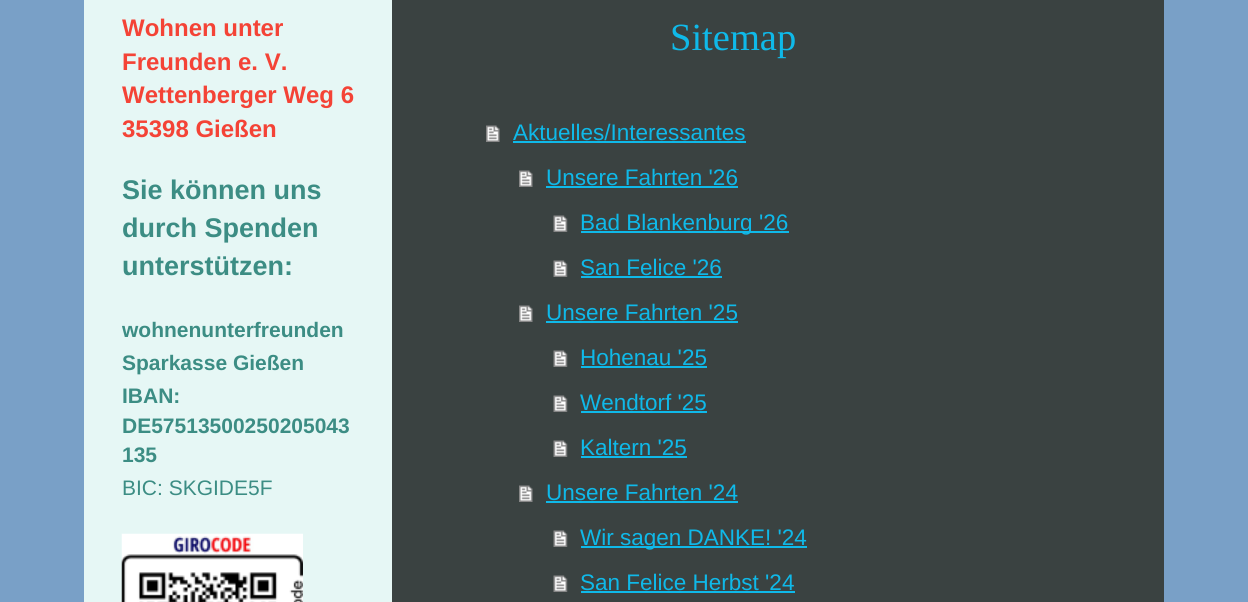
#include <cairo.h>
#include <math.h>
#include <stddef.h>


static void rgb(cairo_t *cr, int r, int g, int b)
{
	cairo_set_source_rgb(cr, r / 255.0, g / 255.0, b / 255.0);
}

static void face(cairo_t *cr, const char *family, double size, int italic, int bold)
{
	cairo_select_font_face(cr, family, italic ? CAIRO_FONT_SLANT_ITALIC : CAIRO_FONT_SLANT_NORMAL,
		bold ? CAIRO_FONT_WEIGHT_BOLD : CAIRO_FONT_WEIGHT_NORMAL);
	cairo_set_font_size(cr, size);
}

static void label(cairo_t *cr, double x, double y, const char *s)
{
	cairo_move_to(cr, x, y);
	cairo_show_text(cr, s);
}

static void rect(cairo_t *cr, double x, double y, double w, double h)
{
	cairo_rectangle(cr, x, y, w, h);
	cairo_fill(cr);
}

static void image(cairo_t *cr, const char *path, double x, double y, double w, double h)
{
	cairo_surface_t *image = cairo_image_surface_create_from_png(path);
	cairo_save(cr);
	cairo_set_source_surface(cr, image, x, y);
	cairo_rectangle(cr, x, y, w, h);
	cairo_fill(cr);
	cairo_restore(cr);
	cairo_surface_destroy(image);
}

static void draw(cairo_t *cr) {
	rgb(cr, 121, 160, 199);
	cairo_paint(cr);
	rgb(cr, 58, 66, 65);
	rect(cr, 392, 0, 772, 602);
	rgb(cr, 230, 247, 245);
	rect(cr, 84, 0, 308, 602);
	face(cr, "Liberation Sans", 24, 0, 1);
	rgb(cr, 244, 67, 54);
	label(cr, 122, 36, "Wohnen unter");
	label(cr, 122, 70, "Freunden e. V.");
	label(cr, 122, 103, "Wettenberger Weg 6");
	label(cr, 122, 137, "35398 Gießen");
	face(cr, "Liberation Sans", 27, 0, 1);
	rgb(cr, 60, 141, 132);
	label(cr, 122, 199, "Sie können uns");
	label(cr, 122, 237, "durch Spenden");
	label(cr, 122, 275, "unterstützen:");
	face(cr, "Liberation Sans", 21, 0, 1);
	label(cr, 122, 337, "wohnenunterfreunden");
	label(cr, 122, 370, "Sparkasse Gießen");
	label(cr, 122, 403, "IBAN:");
	label(cr, 122, 433, "DE57513500250205043");
	label(cr, 122, 462, "135");
	face(cr, "Liberation Sans", 21, 0, 0);
	label(cr, 122, 495, "BIC: SKGIDE5F");
	image(cr, "image0.png", 121, 533, 182, 69);
	face(cr, "Liberation Serif", 38.5, 0, 0);
	rgb(cr, 15, 185, 233);
	label(cr, 670, 50, "Sitemap");
	image(cr, "image1.png", 486, 125, 14, 17);
	face(cr, "Liberation Sans", 22.5, 0, 0);
	label(cr, 513, 140, "Aktuelles/Interessantes");
	rect(cr, 513, 141, 233, 2);
	image(cr, "image2.png", 519, 170, 14, 17);
	label(cr, 546, 185, "Unsere Fahrten '26");
	rect(cr, 546, 186, 192, 2);
	image(cr, "image3.png", 553, 215, 15, 17);
	rect(cr, 581, 231, 208, 2);
	label(cr, 580, 230, "Bad Blankenburg '26");
	image(cr, "image3.png", 553, 260, 15, 17);
	label(cr, 580, 275, "San Felice '26");
	rect(cr, 581, 276, 141, 2);
	image(cr, "image2.png", 519, 305, 14, 17);
	label(cr, 546, 320, "Unsere Fahrten '25");
	rect(cr, 546, 321, 192, 2);
	image(cr, "image3.png", 553, 350, 15, 17);
	label(cr, 580, 365, "Hohenau '25");
	rect(cr, 581, 366, 126, 2);
	image(cr, "image3.png", 553, 395, 15, 17);
	label(cr, 580, 410, "Wendtorf '25");
	rect(cr, 581, 411, 126, 2);
	image(cr, "image3.png", 553, 440, 15, 17);
	label(cr, 580, 455, "Kaltern '25");
	rect(cr, 581, 456, 106, 2);
	image(cr, "image2.png", 519, 485, 14, 17);
	label(cr, 546, 500, "Unsere Fahrten '24");
	rect(cr, 546, 501, 192, 2);
	image(cr, "image3.png", 553, 530, 15, 17);
	rect(cr, 581, 546, 226, 2);
	label(cr, 580, 545, "Wir sagen DANKE! '24");
	image(cr, "image3.png", 553, 575, 15, 17);
	label(cr, 580, 590, "San Felice Herbst '24");
	rect(cr, 581, 591, 214, 2);
}

int main(void) {
	cairo_surface_t *surface = cairo_image_surface_create(CAIRO_FORMAT_RGB24, 1248, 602);
	cairo_t *cr = cairo_create(surface);
	cairo_font_options_t *options = cairo_font_options_create();
	cairo_font_options_set_hint_metrics(options, CAIRO_HINT_METRICS_OFF);
	cairo_font_options_set_hint_style(options, CAIRO_HINT_STYLE_NONE);
	cairo_set_font_options(cr, options);
	cairo_set_miter_limit(cr, 4);
	draw(cr);
	cairo_surface_write_to_png(surface, "render.png");
	cairo_font_options_destroy(options);
	cairo_destroy(cr);
	cairo_surface_destroy(surface);
	return 0;
}
